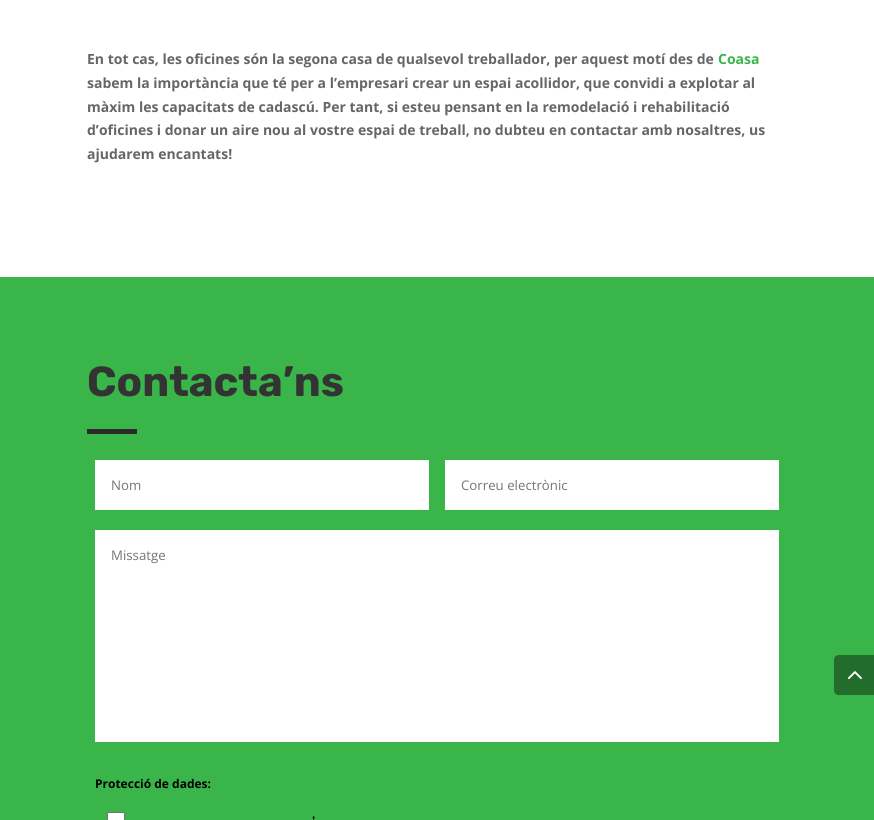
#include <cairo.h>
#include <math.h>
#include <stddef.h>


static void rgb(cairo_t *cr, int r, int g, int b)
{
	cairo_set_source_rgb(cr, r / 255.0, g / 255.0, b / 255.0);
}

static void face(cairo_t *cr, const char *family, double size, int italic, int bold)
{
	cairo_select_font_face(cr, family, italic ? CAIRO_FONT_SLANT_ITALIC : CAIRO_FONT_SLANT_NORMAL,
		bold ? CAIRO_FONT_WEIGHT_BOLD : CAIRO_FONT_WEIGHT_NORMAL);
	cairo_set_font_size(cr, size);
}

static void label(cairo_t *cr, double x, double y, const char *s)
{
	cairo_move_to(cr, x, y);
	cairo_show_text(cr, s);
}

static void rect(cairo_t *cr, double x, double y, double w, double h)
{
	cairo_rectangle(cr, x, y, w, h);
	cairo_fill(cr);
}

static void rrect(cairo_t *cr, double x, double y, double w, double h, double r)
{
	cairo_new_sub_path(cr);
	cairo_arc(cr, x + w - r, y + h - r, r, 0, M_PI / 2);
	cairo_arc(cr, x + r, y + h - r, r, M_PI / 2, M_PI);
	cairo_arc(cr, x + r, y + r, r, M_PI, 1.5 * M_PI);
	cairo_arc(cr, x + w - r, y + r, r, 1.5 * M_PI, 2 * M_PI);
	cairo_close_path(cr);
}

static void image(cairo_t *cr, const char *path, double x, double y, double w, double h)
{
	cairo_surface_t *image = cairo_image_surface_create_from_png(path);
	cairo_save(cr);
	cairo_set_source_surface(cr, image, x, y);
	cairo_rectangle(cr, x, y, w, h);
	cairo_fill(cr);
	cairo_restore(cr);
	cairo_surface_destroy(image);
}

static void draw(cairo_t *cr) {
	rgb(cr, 255, 255, 255);
	cairo_paint(cr);
	face(cr, "Open Sans", 14, 0, 1);
	rgb(cr, 102, 102, 102);
	label(cr, 87, 64, "En tot cas, les oficines són la segona casa de qualsevol treballador, per aquest motí des de");
	rgb(cr, 57, 181, 74);
	label(cr, 718, 64, "Coasa");
	rgb(cr, 102, 102, 102);
	label(cr, 87, 88, "sabem la importància que té per a l’empresari crear un espai acollidor, que convidi a explotar al");
	label(cr, 87, 112, "màxim les capacitats de cadascú. Per tant, si esteu pensant en la remodelació i rehabilitació");
	label(cr, 87, 135, "d’oficines i donar un aire nou al vostre espai de treball, no dubteu en contactar amb nosaltres, us");
	label(cr, 87, 159, "ajudarem encantats!");
	rgb(cr, 57, 181, 74);
	rect(cr, 0, 277, 874, 543);
	face(cr, "Rubik Light", 42, 0, 0);
	rgb(cr, 51, 51, 51);
	label(cr, 87, 396, "Contacta’ns");
	rgb(cr, 42, 42, 42);
	rect(cr, 87, 429, 50, 5);
	rgb(cr, 255, 255, 255);
	rect(cr, 95, 460, 334, 50);
	face(cr, "Open Sans", 13.25, 0, 0);
	rgb(cr, 117, 117, 117);
	label(cr, 111, 490, "Nom");
	rgb(cr, 255, 255, 255);
	rect(cr, 445, 460, 334, 50);
	rgb(cr, 117, 117, 117);
	label(cr, 461, 490, "Correu electrònic");
	rgb(cr, 255, 255, 255);
	rect(cr, 95, 530, 684, 212);
	rgb(cr, 117, 117, 117);
	label(cr, 111, 560, "Missatge");
	face(cr, "Open Sans", 12, 0, 1);
	rgb(cr, 0, 0, 0);
	label(cr, 95, 788, "Protecció de dades:");
	rgb(cr, 255, 255, 255);
	rrect(cr, 107.5, 812.5, 17, 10, 1.5);
	cairo_fill_preserve(cr);
	rgb(cr, 118, 118, 118);
	cairo_set_line_width(cr, 1);
	cairo_stroke(cr);
	rgb(cr, 0, 0, 0);
	label(cr, 312, 825, "'");
	rgb(cr, 34, 109, 44);
	cairo_new_path(cr);
	cairo_move_to(cr, 839, 655);
	cairo_line_to(cr, 874, 655);
	cairo_line_to(cr, 874, 695);
	cairo_line_to(cr, 839, 695);
	cairo_curve_to(cr, 836, 695, 834, 693, 834, 690);
	cairo_line_to(cr, 834, 660);
	cairo_curve_to(cr, 834, 657, 836, 655, 839, 655);
	cairo_close_path(cr);
	cairo_fill(cr);
	image(cr, "image0.png", 847, 671, 15, 9);
}

int main(void) {
	cairo_surface_t *surface = cairo_image_surface_create(CAIRO_FORMAT_RGB24, 874, 820);
	cairo_t *cr = cairo_create(surface);
	cairo_font_options_t *options = cairo_font_options_create();
	cairo_font_options_set_hint_metrics(options, CAIRO_HINT_METRICS_OFF);
	cairo_font_options_set_hint_style(options, CAIRO_HINT_STYLE_NONE);
	cairo_set_font_options(cr, options);
	cairo_set_miter_limit(cr, 4);
	draw(cr);
	cairo_surface_write_to_png(surface, "render.png");
	cairo_font_options_destroy(options);
	cairo_destroy(cr);
	cairo_surface_destroy(surface);
	return 0;
}
